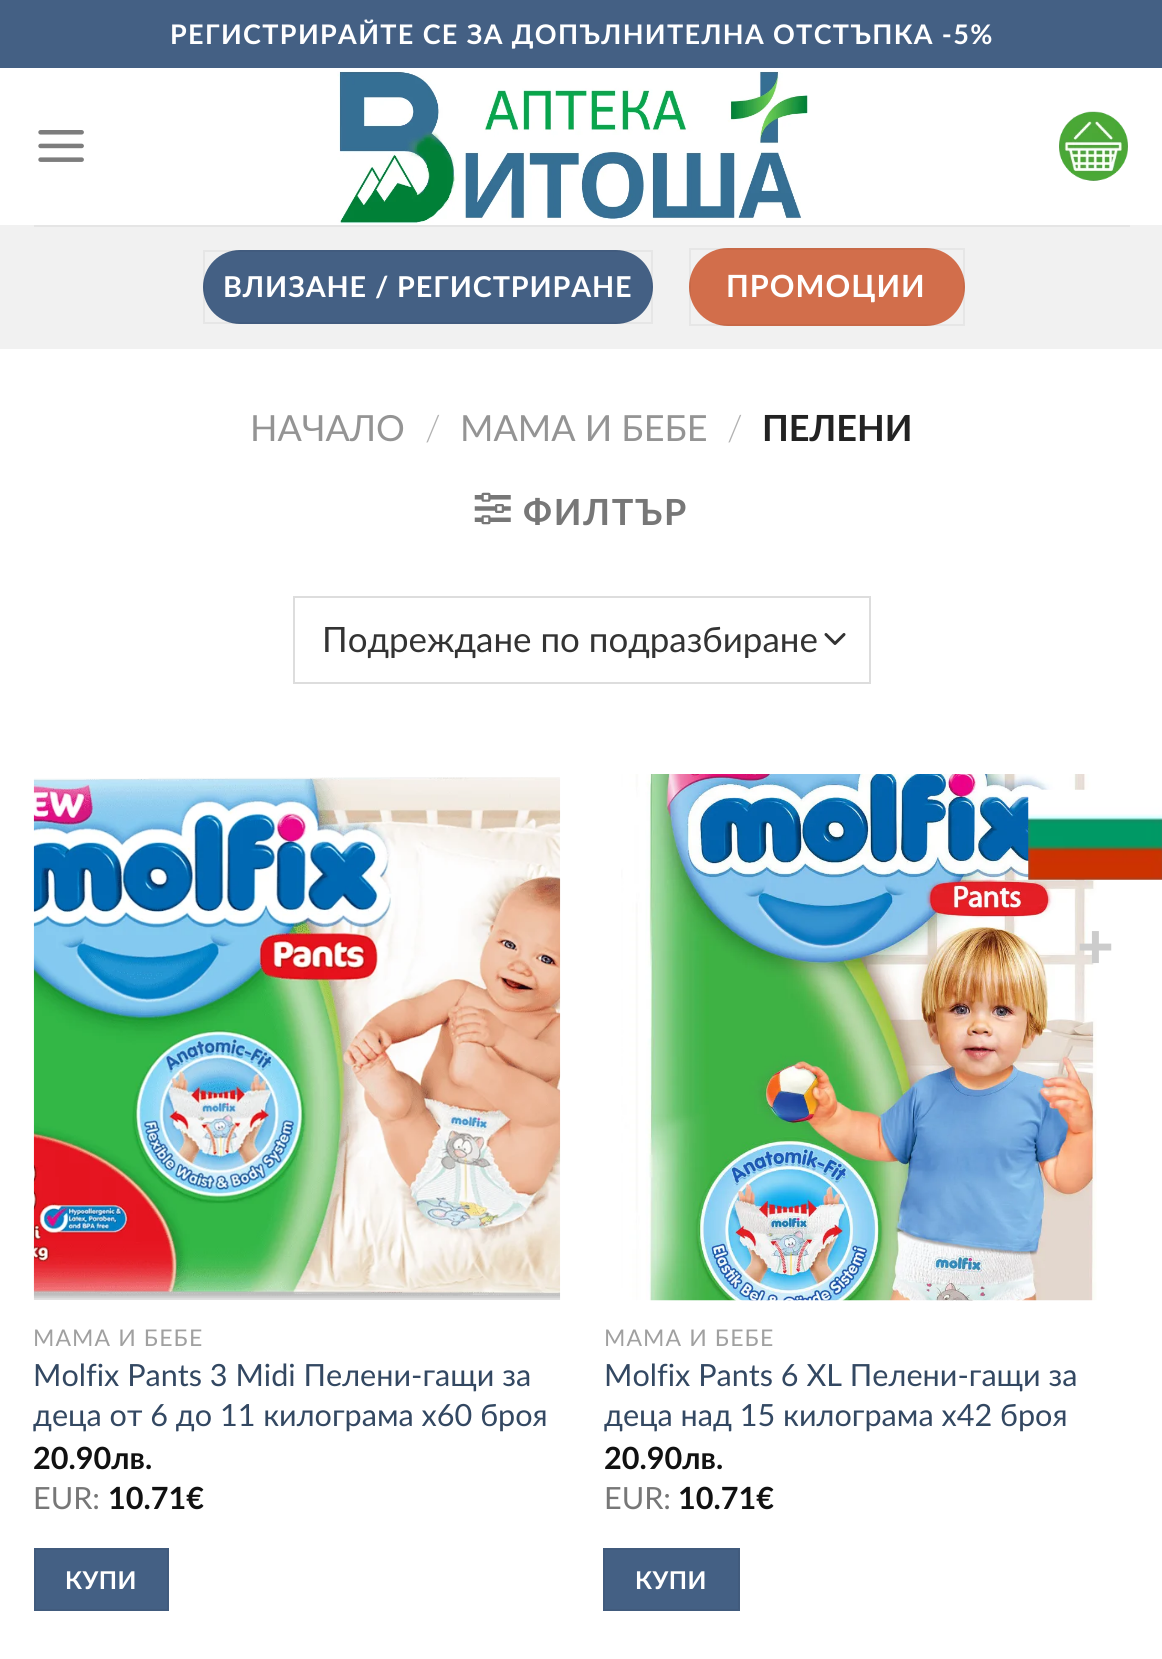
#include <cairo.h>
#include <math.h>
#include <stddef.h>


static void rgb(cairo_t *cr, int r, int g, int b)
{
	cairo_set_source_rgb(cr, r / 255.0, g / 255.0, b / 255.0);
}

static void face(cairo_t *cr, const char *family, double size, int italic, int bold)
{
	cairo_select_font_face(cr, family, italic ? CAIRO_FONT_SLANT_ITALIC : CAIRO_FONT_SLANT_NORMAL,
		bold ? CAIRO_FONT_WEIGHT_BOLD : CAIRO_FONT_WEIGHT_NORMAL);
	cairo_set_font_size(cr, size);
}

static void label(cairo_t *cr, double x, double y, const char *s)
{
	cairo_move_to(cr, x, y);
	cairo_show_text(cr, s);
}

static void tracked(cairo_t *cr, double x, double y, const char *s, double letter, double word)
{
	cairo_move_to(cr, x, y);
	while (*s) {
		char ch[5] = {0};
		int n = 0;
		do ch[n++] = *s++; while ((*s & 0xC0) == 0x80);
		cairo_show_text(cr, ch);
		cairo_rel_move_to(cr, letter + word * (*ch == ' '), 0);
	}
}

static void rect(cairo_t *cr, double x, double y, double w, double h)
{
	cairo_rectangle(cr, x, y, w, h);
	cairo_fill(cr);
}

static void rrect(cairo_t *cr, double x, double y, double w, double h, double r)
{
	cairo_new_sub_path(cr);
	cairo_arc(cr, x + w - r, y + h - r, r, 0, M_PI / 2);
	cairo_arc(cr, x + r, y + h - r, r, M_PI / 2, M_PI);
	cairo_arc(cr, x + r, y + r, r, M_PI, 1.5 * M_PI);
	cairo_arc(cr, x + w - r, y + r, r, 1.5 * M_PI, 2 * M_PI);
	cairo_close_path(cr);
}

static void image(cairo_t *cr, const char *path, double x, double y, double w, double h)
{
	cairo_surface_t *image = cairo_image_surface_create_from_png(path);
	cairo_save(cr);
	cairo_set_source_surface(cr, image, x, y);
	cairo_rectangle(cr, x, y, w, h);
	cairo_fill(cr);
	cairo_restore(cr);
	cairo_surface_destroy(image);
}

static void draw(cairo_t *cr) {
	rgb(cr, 255, 255, 255);
	cairo_paint(cr);
	rgb(cr, 68, 96, 132);
	rect(cr, 0, 0, 1162, 68);
	face(cr, "Lato", 27, 0, 1);
	rgb(cr, 255, 255, 255);
	tracked(cr, 170, 44, "РЕГИСТРИРАЙТЕ СЕ ЗА ДОПЪЛНИТЕЛНА ОТСТЪПКА -5%", 1.35, 0);
	image(cr, "image0.png", 38, 130, 46, 32);
	image(cr, "image1.png", 337, 71, 472, 153);
	image(cr, "image2.png", 1059, 111, 69, 70);
	rgb(cr, 241, 241, 241);
	rect(cr, 0, 225, 1162, 124);
	rgb(cr, 229, 229, 229);
	rect(cr, 34, 225, 1096, 2);
	rgb(cr, 68, 96, 132);
	rrect(cr, 203, 250, 450, 74, 37);
	cairo_fill(cr);
	cairo_rectangle(cr, 204, 251, 448, 72);
	cairo_set_source_rgba(cr, 0, 0, 0, 0.05);
	cairo_stroke(cr);
	face(cr, "Lato", 28.75, 0, 1);
	rgb(cr, 255, 255, 255);
	tracked(cr, 223, 297, "ВЛИЗАНЕ / РЕГИСТРИРАНЕ", 0.9, 0);
	rgb(cr, 210, 110, 75);
	rrect(cr, 689, 248, 276, 78, 39);
	cairo_fill(cr);
	cairo_rectangle(cr, 690, 249, 274, 76);
	cairo_set_source_rgba(cr, 0, 0, 0, 0.05);
	cairo_stroke(cr);
	face(cr, "Lato", 30.6, 0, 1);
	rgb(cr, 255, 255, 255);
	tracked(cr, 726, 297, "ПРОМОЦИИ", 1, 0);
	face(cr, "Lato", 36, 0, 0);
	rgb(cr, 148, 148, 148);
	label(cr, 250, 441, "НАЧАЛО");
	face(cr, "Lato Light", 36, 0, 0);
	rgb(cr, 178, 178, 178);
	label(cr, 425, 441, "/");
	face(cr, "Lato", 36, 0, 0);
	rgb(cr, 148, 148, 148);
	label(cr, 460, 441, "МАМА И БЕБЕ");
	face(cr, "Lato Light", 36, 0, 0);
	rgb(cr, 178, 178, 178);
	label(cr, 727, 441, "/");
	face(cr, "Lato", 36, 0, 1);
	rgb(cr, 34, 34, 34);
	label(cr, 762, 441, "ПЕЛЕНИ");
	image(cr, "image3.png", 474, 492, 37, 33);
	rgb(cr, 119, 119, 119);
	tracked(cr, 523, 525, "ФИЛТЪР", 1.75, 0);
	cairo_new_path(cr);
	cairo_move_to(cr, 826, 634.5);
	cairo_line_to(cr, 835, 643.5);
	cairo_line_to(cr, 844, 634.5);
	rgb(cr, 51, 51, 51);
	cairo_set_line_width(cr, 3);
	cairo_set_line_cap(cr, CAIRO_LINE_CAP_ROUND);
	cairo_set_line_join(cr, CAIRO_LINE_JOIN_ROUND);
	cairo_stroke(cr);
	cairo_rectangle(cr, 294, 597, 576, 86);
	rgb(cr, 221, 221, 221);
	cairo_set_line_width(cr, 2);
	cairo_set_line_cap(cr, CAIRO_LINE_CAP_BUTT);
	cairo_set_line_join(cr, CAIRO_LINE_JOIN_MITER);
	cairo_stroke(cr);
	face(cr, "Lato", 34.9, 0, 0);
	rgb(cr, 51, 51, 51);
	label(cr, 322, 652, "Подреждане по подразбиране");
	image(cr, "image4.png", 33, 777, 528, 523);
	face(cr, "Lato", 23, 0, 0);
	rgb(cr, 160, 160, 160);
	tracked(cr, 33, 1346, "МАМА И БЕБЕ", 1.1, 0);
	face(cr, "Lato", 30.6, 0, 0);
	rgb(cr, 51, 72, 98);
	label(cr, 33, 1386, "Molfix Pants 3 Midi Пелени-гащи за");
	label(cr, 33, 1426, "деца от 6 до 11 килограма x60 броя");
	face(cr, "Lato", 30.6, 0, 1);
	rgb(cr, 17, 17, 17);
	label(cr, 33, 1469, "20.90лв.");
	face(cr, "Lato", 30.6, 0, 0);
	rgb(cr, 119, 119, 119);
	label(cr, 33, 1509, "EUR:");
	face(cr, "Lato", 30.6, 0, 1);
	rgb(cr, 17, 17, 17);
	label(cr, 108, 1509, "10.71€");
	rgb(cr, 68, 96, 132);
	cairo_rectangle(cr, 35, 1549, 133, 61);
	cairo_fill_preserve(cr);
	rgb(cr, 65, 91, 125);
	cairo_stroke(cr);
	face(cr, "Lato", 24.5, 0, 1);
	rgb(cr, 255, 255, 255);
	tracked(cr, 65, 1589, "КУПИ", 0.5, 0);
	image(cr, "image5.png", 621, 774, 476, 527);
	face(cr, "Lato", 23, 0, 0);
	rgb(cr, 160, 160, 160);
	tracked(cr, 604, 1346, "МАМА И БЕБЕ", 1.1, 0);
	face(cr, "Lato", 30.6, 0, 0);
	rgb(cr, 51, 72, 98);
	label(cr, 604, 1386, "Molfix Pants 6 XL Пелени-гащи за");
	label(cr, 604, 1426, "деца над 15 килограма x42 броя");
	face(cr, "Lato", 30.6, 0, 1);
	rgb(cr, 17, 17, 17);
	label(cr, 604, 1469, "20.90лв.");
	face(cr, "Lato", 30.6, 0, 0);
	rgb(cr, 119, 119, 119);
	label(cr, 604, 1509, "EUR:");
	face(cr, "Lato", 30.6, 0, 1);
	rgb(cr, 17, 17, 17);
	label(cr, 678, 1509, "10.71€");
	rgb(cr, 68, 96, 132);
	cairo_rectangle(cr, 604, 1549, 135, 61);
	cairo_fill_preserve(cr);
	rgb(cr, 65, 91, 125);
	cairo_stroke(cr);
	face(cr, "Lato", 24.5, 0, 1);
	rgb(cr, 255, 255, 255);
	tracked(cr, 635, 1589, "КУПИ", 0.5, 0);
	image(cr, "image6.png", 1028, 789, 134, 91);
	face(cr, "Liberation Sans", 63, 0, 1);
	rgb(cr, 204, 204, 204);
	label(cr, 1077, 968, "+");
}

int main(void) {
	cairo_surface_t *surface = cairo_image_surface_create(CAIRO_FORMAT_RGB24, 1162, 1659);
	cairo_t *cr = cairo_create(surface);
	cairo_font_options_t *options = cairo_font_options_create();
	cairo_font_options_set_hint_metrics(options, CAIRO_HINT_METRICS_OFF);
	cairo_font_options_set_hint_style(options, CAIRO_HINT_STYLE_NONE);
	cairo_set_font_options(cr, options);
	cairo_set_miter_limit(cr, 4);
	draw(cr);
	cairo_surface_write_to_png(surface, "render.png");
	cairo_font_options_destroy(options);
	cairo_destroy(cr);
	cairo_surface_destroy(surface);
	return 0;
}
